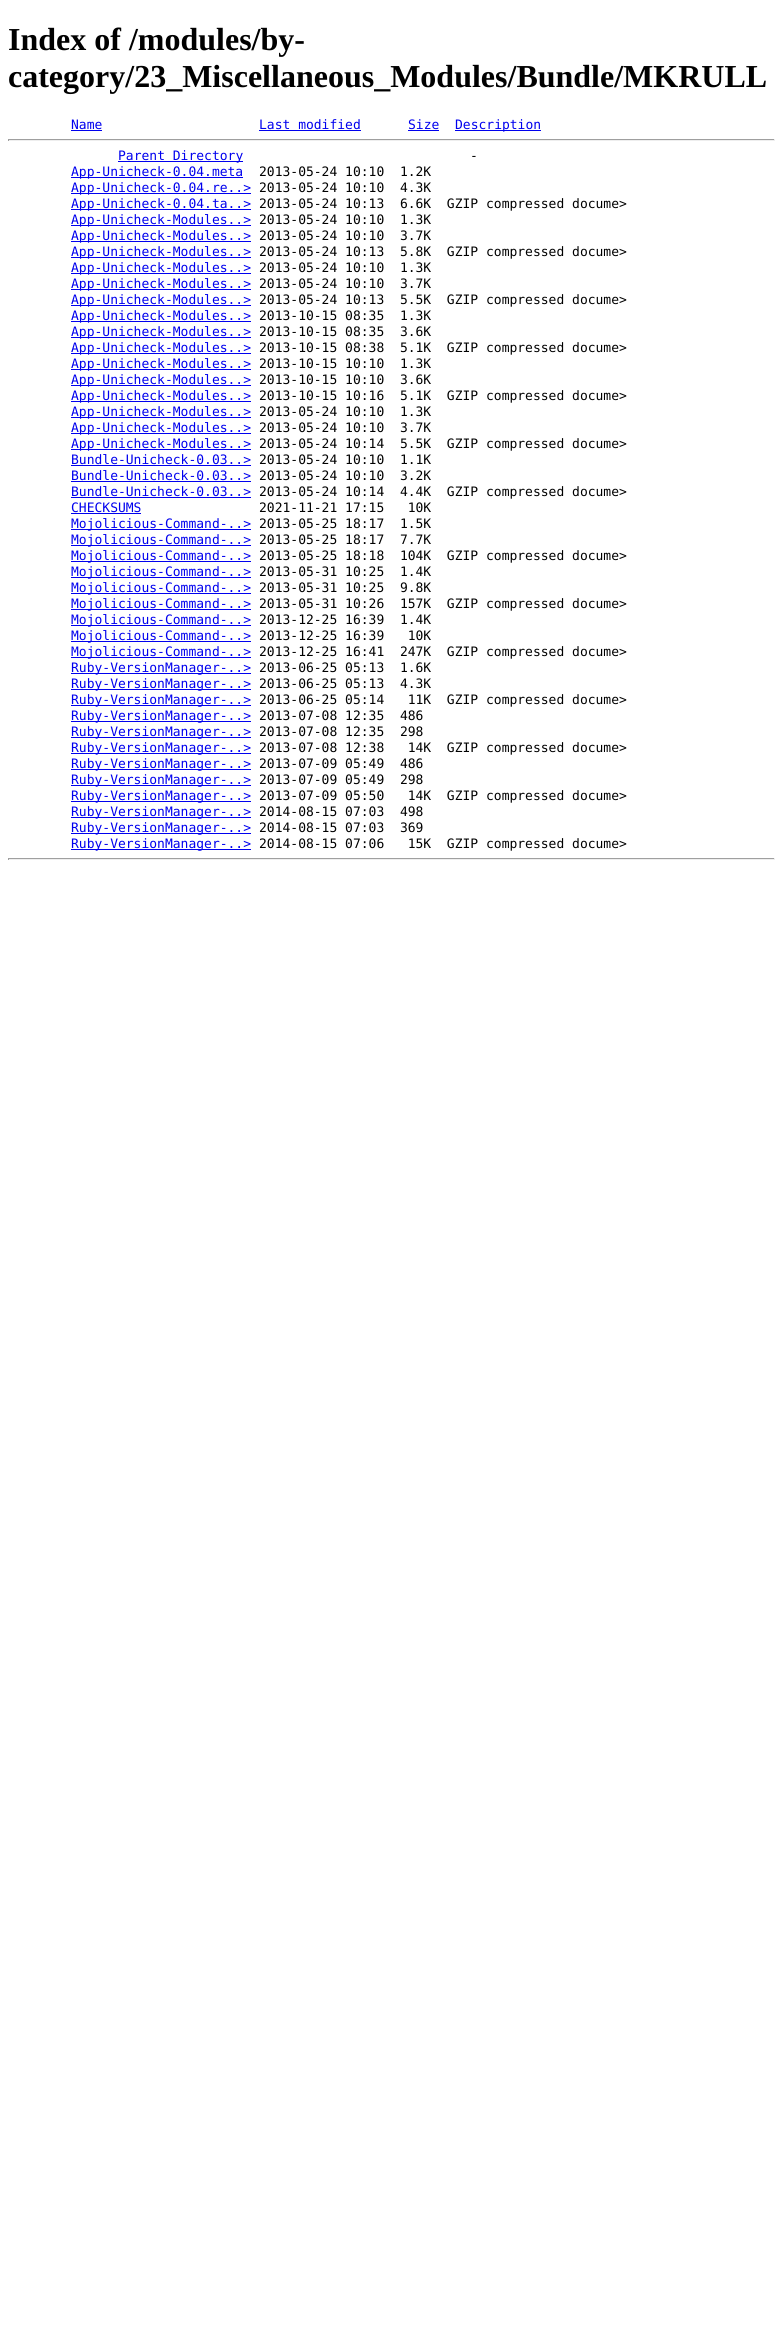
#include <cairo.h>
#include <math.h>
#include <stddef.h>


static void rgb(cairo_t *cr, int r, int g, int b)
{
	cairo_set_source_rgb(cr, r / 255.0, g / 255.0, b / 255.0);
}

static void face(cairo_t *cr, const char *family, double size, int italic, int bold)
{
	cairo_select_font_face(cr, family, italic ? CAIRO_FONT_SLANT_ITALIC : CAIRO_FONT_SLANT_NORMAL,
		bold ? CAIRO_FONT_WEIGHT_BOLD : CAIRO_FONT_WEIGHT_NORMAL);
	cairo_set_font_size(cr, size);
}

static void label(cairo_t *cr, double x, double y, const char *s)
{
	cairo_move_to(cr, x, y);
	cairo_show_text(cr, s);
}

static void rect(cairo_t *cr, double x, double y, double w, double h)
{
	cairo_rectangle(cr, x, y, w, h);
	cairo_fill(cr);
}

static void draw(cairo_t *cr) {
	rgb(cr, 255, 255, 255);
	cairo_paint(cr);
	face(cr, "Liberation Serif", 32, 0, 1);
	rgb(cr, 0, 0, 0);
	label(cr, 8, 50, "Index of /modules/by-");
	label(cr, 8, 87, "category/23_Miscellaneous_Modules/Bundle/MKRULL");
	face(cr, "DejaVu Sans Mono", 13, 0, 0);
	rgb(cr, 0, 0, 238);
	label(cr, 71, 129, "Name");
	rect(cr, 71, 130, 31, 1);
	label(cr, 259, 129, "Last modified");
	rect(cr, 259, 130, 102, 1);
	label(cr, 408, 129, "Size");
	rect(cr, 408, 130, 31, 1);
	rect(cr, 455, 130, 86, 1);
	label(cr, 455, 129, "Description");
	rgb(cr, 159, 159, 159);
	rect(cr, 8, 139, 767, 1);
	rgb(cr, 238, 238, 238);
	rect(cr, 774, 139, 1, 2);
	rect(cr, 8, 140, 767, 1);
	rgb(cr, 159, 159, 159);
	rect(cr, 8, 139, 1, 2);
	rgb(cr, 0, 0, 238);
	rect(cr, 118, 161, 125, 1);
	label(cr, 118, 160, "Parent Directory");
	rgb(cr, 0, 0, 0);
	label(cr, 470, 160, "-");
	rgb(cr, 0, 0, 238);
	rect(cr, 71, 177, 172, 1);
	label(cr, 71, 176, "App-Unicheck-0.04.meta");
	rgb(cr, 0, 0, 0);
	label(cr, 259, 176, "2013-05-24 10:10  1.2K");
	rgb(cr, 0, 0, 238);
	rect(cr, 71, 193, 180, 1);
	label(cr, 71, 192, "App-Unicheck-0.04.re..>");
	rgb(cr, 0, 0, 0);
	label(cr, 259, 192, "2013-05-24 10:10  4.3K");
	rgb(cr, 0, 0, 238);
	rect(cr, 71, 209, 180, 1);
	label(cr, 71, 208, "App-Unicheck-0.04.ta..>");
	rgb(cr, 0, 0, 0);
	label(cr, 259, 208, "2013-05-24 10:13  6.6K  GZIP compressed docume>");
	rgb(cr, 0, 0, 238);
	rect(cr, 71, 225, 180, 1);
	label(cr, 71, 224, "App-Unicheck-Modules..>");
	rgb(cr, 0, 0, 0);
	label(cr, 259, 224, "2013-05-24 10:10  1.3K");
	rgb(cr, 0, 0, 238);
	rect(cr, 71, 241, 180, 1);
	label(cr, 71, 240, "App-Unicheck-Modules..>");
	rgb(cr, 0, 0, 0);
	label(cr, 259, 240, "2013-05-24 10:10  3.7K");
	rgb(cr, 0, 0, 238);
	rect(cr, 71, 257, 180, 1);
	label(cr, 71, 256, "App-Unicheck-Modules..>");
	rgb(cr, 0, 0, 0);
	label(cr, 259, 256, "2013-05-24 10:13  5.8K  GZIP compressed docume>");
	rgb(cr, 0, 0, 238);
	rect(cr, 71, 273, 180, 1);
	label(cr, 71, 272, "App-Unicheck-Modules..>");
	rgb(cr, 0, 0, 0);
	label(cr, 259, 272, "2013-05-24 10:10  1.3K");
	rgb(cr, 0, 0, 238);
	rect(cr, 71, 289, 180, 1);
	label(cr, 71, 288, "App-Unicheck-Modules..>");
	rgb(cr, 0, 0, 0);
	label(cr, 259, 288, "2013-05-24 10:10  3.7K");
	rgb(cr, 0, 0, 238);
	rect(cr, 71, 305, 180, 1);
	label(cr, 71, 304, "App-Unicheck-Modules..>");
	rgb(cr, 0, 0, 0);
	label(cr, 259, 304, "2013-05-24 10:13  5.5K  GZIP compressed docume>");
	rgb(cr, 0, 0, 238);
	rect(cr, 71, 321, 180, 1);
	label(cr, 71, 320, "App-Unicheck-Modules..>");
	rgb(cr, 0, 0, 0);
	label(cr, 259, 320, "2013-10-15 08:35  1.3K");
	rgb(cr, 0, 0, 238);
	rect(cr, 71, 337, 180, 1);
	label(cr, 71, 336, "App-Unicheck-Modules..>");
	rgb(cr, 0, 0, 0);
	label(cr, 259, 336, "2013-10-15 08:35  3.6K");
	rgb(cr, 0, 0, 238);
	rect(cr, 71, 353, 180, 1);
	label(cr, 71, 352, "App-Unicheck-Modules..>");
	rgb(cr, 0, 0, 0);
	label(cr, 259, 352, "2013-10-15 08:38  5.1K  GZIP compressed docume>");
	rgb(cr, 0, 0, 238);
	rect(cr, 71, 369, 180, 1);
	label(cr, 71, 368, "App-Unicheck-Modules..>");
	rgb(cr, 0, 0, 0);
	label(cr, 259, 368, "2013-10-15 10:10  1.3K");
	rgb(cr, 0, 0, 238);
	rect(cr, 71, 385, 180, 1);
	label(cr, 71, 384, "App-Unicheck-Modules..>");
	rgb(cr, 0, 0, 0);
	label(cr, 259, 384, "2013-10-15 10:10  3.6K");
	rgb(cr, 0, 0, 238);
	rect(cr, 71, 401, 180, 1);
	label(cr, 71, 400, "App-Unicheck-Modules..>");
	rgb(cr, 0, 0, 0);
	label(cr, 259, 400, "2013-10-15 10:16  5.1K  GZIP compressed docume>");
	rgb(cr, 0, 0, 238);
	rect(cr, 71, 417, 180, 1);
	label(cr, 71, 416, "App-Unicheck-Modules..>");
	rgb(cr, 0, 0, 0);
	label(cr, 259, 416, "2013-05-24 10:10  1.3K");
	rgb(cr, 0, 0, 238);
	rect(cr, 71, 433, 180, 1);
	label(cr, 71, 432, "App-Unicheck-Modules..>");
	rgb(cr, 0, 0, 0);
	label(cr, 259, 432, "2013-05-24 10:10  3.7K");
	rgb(cr, 0, 0, 238);
	rect(cr, 71, 449, 180, 1);
	label(cr, 71, 448, "App-Unicheck-Modules..>");
	rgb(cr, 0, 0, 0);
	label(cr, 259, 448, "2013-05-24 10:14  5.5K  GZIP compressed docume>");
	rgb(cr, 0, 0, 238);
	label(cr, 71, 464, "Bundle-Unicheck-0.03..>");
	rect(cr, 71, 465, 180, 1);
	rgb(cr, 0, 0, 0);
	label(cr, 259, 464, "2013-05-24 10:10  1.1K");
	rgb(cr, 0, 0, 238);
	label(cr, 71, 480, "Bundle-Unicheck-0.03..>");
	rect(cr, 71, 481, 180, 1);
	rgb(cr, 0, 0, 0);
	label(cr, 259, 480, "2013-05-24 10:10  3.2K");
	rgb(cr, 0, 0, 238);
	label(cr, 71, 496, "Bundle-Unicheck-0.03..>");
	rect(cr, 71, 497, 180, 1);
	rgb(cr, 0, 0, 0);
	label(cr, 259, 496, "2013-05-24 10:14  4.4K  GZIP compressed docume>");
	rgb(cr, 0, 0, 238);
	label(cr, 71, 512, "CHECKSUMS");
	rect(cr, 71, 513, 70, 1);
	rgb(cr, 0, 0, 0);
	label(cr, 259, 512, "2021-11-21 17:15   10K");
	rgb(cr, 0, 0, 238);
	rect(cr, 71, 529, 180, 1);
	label(cr, 71, 528, "Mojolicious-Command-..>");
	rgb(cr, 0, 0, 0);
	label(cr, 259, 528, "2013-05-25 18:17  1.5K");
	rgb(cr, 0, 0, 238);
	rect(cr, 71, 545, 180, 1);
	label(cr, 71, 544, "Mojolicious-Command-..>");
	rgb(cr, 0, 0, 0);
	label(cr, 259, 544, "2013-05-25 18:17  7.7K");
	rgb(cr, 0, 0, 238);
	rect(cr, 71, 561, 180, 1);
	label(cr, 71, 560, "Mojolicious-Command-..>");
	rgb(cr, 0, 0, 0);
	label(cr, 259, 560, "2013-05-25 18:18  104K  GZIP compressed docume>");
	rgb(cr, 0, 0, 238);
	rect(cr, 71, 577, 180, 1);
	label(cr, 71, 576, "Mojolicious-Command-..>");
	rgb(cr, 0, 0, 0);
	label(cr, 259, 576, "2013-05-31 10:25  1.4K");
	rgb(cr, 0, 0, 238);
	rect(cr, 71, 593, 180, 1);
	label(cr, 71, 592, "Mojolicious-Command-..>");
	rgb(cr, 0, 0, 0);
	label(cr, 259, 592, "2013-05-31 10:25  9.8K");
	rgb(cr, 0, 0, 238);
	rect(cr, 71, 609, 180, 1);
	label(cr, 71, 608, "Mojolicious-Command-..>");
	rgb(cr, 0, 0, 0);
	label(cr, 259, 608, "2013-05-31 10:26  157K  GZIP compressed docume>");
	rgb(cr, 0, 0, 238);
	rect(cr, 71, 625, 180, 1);
	label(cr, 71, 624, "Mojolicious-Command-..>");
	rgb(cr, 0, 0, 0);
	label(cr, 259, 624, "2013-12-25 16:39  1.4K");
	rgb(cr, 0, 0, 238);
	rect(cr, 71, 641, 180, 1);
	label(cr, 71, 640, "Mojolicious-Command-..>");
	rgb(cr, 0, 0, 0);
	label(cr, 259, 640, "2013-12-25 16:39   10K");
	rgb(cr, 0, 0, 238);
	rect(cr, 71, 657, 180, 1);
	label(cr, 71, 656, "Mojolicious-Command-..>");
	rgb(cr, 0, 0, 0);
	label(cr, 259, 656, "2013-12-25 16:41  247K  GZIP compressed docume>");
	rgb(cr, 0, 0, 238);
	rect(cr, 71, 673, 180, 1);
	label(cr, 71, 672, "Ruby-VersionManager-..>");
	rgb(cr, 0, 0, 0);
	label(cr, 259, 672, "2013-06-25 05:13  1.6K");
	rgb(cr, 0, 0, 238);
	rect(cr, 71, 689, 180, 1);
	label(cr, 71, 688, "Ruby-VersionManager-..>");
	rgb(cr, 0, 0, 0);
	label(cr, 259, 688, "2013-06-25 05:13  4.3K");
	rgb(cr, 0, 0, 238);
	rect(cr, 71, 705, 180, 1);
	label(cr, 71, 704, "Ruby-VersionManager-..>");
	rgb(cr, 0, 0, 0);
	label(cr, 259, 704, "2013-06-25 05:14   11K  GZIP compressed docume>");
	rgb(cr, 0, 0, 238);
	rect(cr, 71, 721, 180, 1);
	label(cr, 71, 720, "Ruby-VersionManager-..>");
	rgb(cr, 0, 0, 0);
	label(cr, 259, 720, "2013-07-08 12:35  486");
	rgb(cr, 0, 0, 238);
	rect(cr, 71, 737, 180, 1);
	label(cr, 71, 736, "Ruby-VersionManager-..>");
	rgb(cr, 0, 0, 0);
	label(cr, 259, 736, "2013-07-08 12:35  298");
	rgb(cr, 0, 0, 238);
	rect(cr, 71, 753, 180, 1);
	label(cr, 71, 752, "Ruby-VersionManager-..>");
	rgb(cr, 0, 0, 0);
	label(cr, 259, 752, "2013-07-08 12:38   14K  GZIP compressed docume>");
	rgb(cr, 0, 0, 238);
	rect(cr, 71, 769, 180, 1);
	label(cr, 71, 768, "Ruby-VersionManager-..>");
	rgb(cr, 0, 0, 0);
	label(cr, 259, 768, "2013-07-09 05:49  486");
	rgb(cr, 0, 0, 238);
	rect(cr, 71, 785, 180, 1);
	label(cr, 71, 784, "Ruby-VersionManager-..>");
	rgb(cr, 0, 0, 0);
	label(cr, 259, 784, "2013-07-09 05:49  298");
	rgb(cr, 0, 0, 238);
	rect(cr, 71, 801, 180, 1);
	label(cr, 71, 800, "Ruby-VersionManager-..>");
	rgb(cr, 0, 0, 0);
	label(cr, 259, 800, "2013-07-09 05:50   14K  GZIP compressed docume>");
	rgb(cr, 0, 0, 238);
	rect(cr, 71, 817, 180, 1);
	label(cr, 71, 816, "Ruby-VersionManager-..>");
	rgb(cr, 0, 0, 0);
	label(cr, 259, 816, "2014-08-15 07:03  498");
	rgb(cr, 0, 0, 238);
	rect(cr, 71, 833, 180, 1);
	label(cr, 71, 832, "Ruby-VersionManager-..>");
	rgb(cr, 0, 0, 0);
	label(cr, 259, 832, "2014-08-15 07:03  369");
	rgb(cr, 0, 0, 238);
	rect(cr, 71, 849, 180, 1);
	label(cr, 71, 848, "Ruby-VersionManager-..>");
	rgb(cr, 0, 0, 0);
	label(cr, 259, 848, "2014-08-15 07:06   15K  GZIP compressed docume>");
	rgb(cr, 159, 159, 159);
	rect(cr, 8, 858, 767, 1);
	rgb(cr, 238, 238, 238);
	rect(cr, 774, 858, 1, 2);
	rect(cr, 8, 859, 767, 1);
	rgb(cr, 159, 159, 159);
	rect(cr, 8, 858, 1, 2);
}

int main(void) {
	cairo_surface_t *surface = cairo_image_surface_create(CAIRO_FORMAT_RGB24, 783, 2331);
	cairo_t *cr = cairo_create(surface);
	cairo_font_options_t *options = cairo_font_options_create();
	cairo_font_options_set_hint_metrics(options, CAIRO_HINT_METRICS_OFF);
	cairo_font_options_set_hint_style(options, CAIRO_HINT_STYLE_NONE);
	cairo_set_font_options(cr, options);
	cairo_set_miter_limit(cr, 4);
	draw(cr);
	cairo_surface_write_to_png(surface, "render.png");
	cairo_font_options_destroy(options);
	cairo_destroy(cr);
	cairo_surface_destroy(surface);
	return 0;
}
